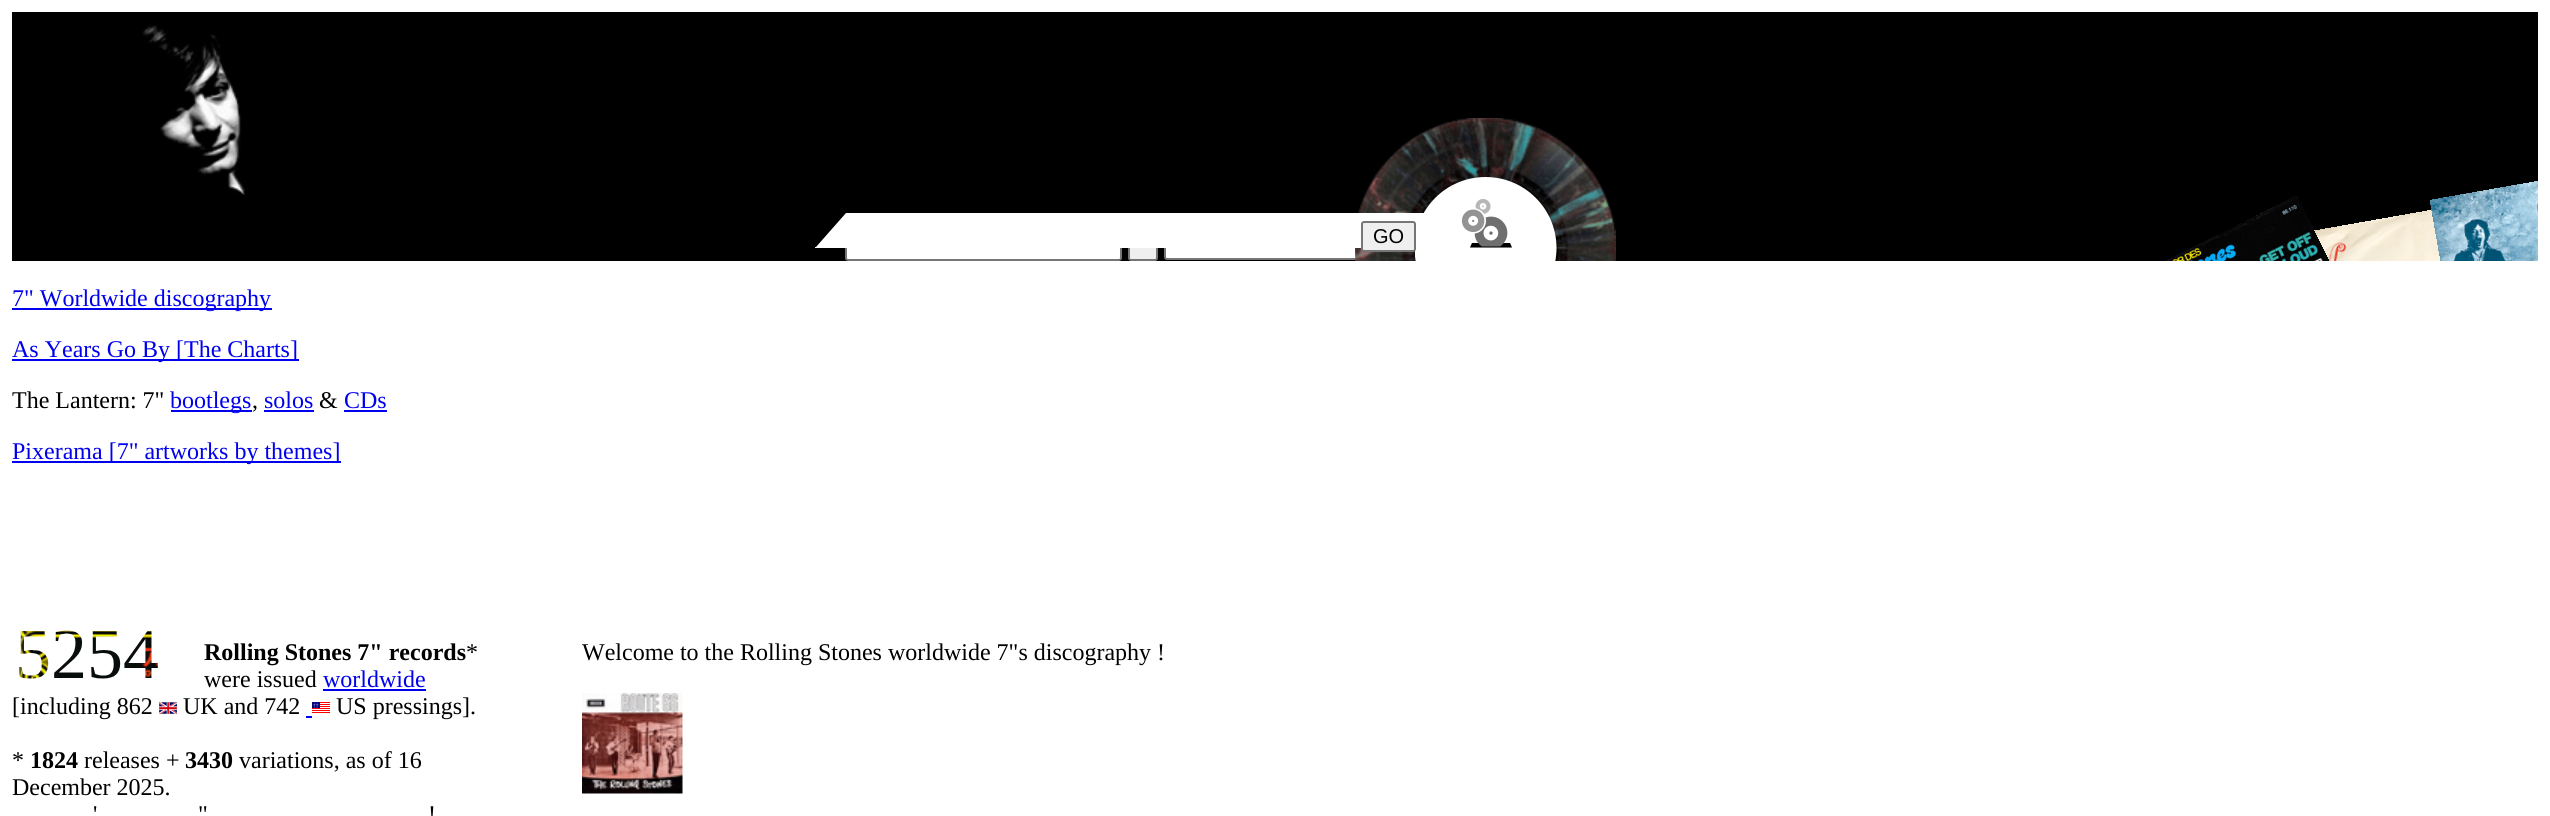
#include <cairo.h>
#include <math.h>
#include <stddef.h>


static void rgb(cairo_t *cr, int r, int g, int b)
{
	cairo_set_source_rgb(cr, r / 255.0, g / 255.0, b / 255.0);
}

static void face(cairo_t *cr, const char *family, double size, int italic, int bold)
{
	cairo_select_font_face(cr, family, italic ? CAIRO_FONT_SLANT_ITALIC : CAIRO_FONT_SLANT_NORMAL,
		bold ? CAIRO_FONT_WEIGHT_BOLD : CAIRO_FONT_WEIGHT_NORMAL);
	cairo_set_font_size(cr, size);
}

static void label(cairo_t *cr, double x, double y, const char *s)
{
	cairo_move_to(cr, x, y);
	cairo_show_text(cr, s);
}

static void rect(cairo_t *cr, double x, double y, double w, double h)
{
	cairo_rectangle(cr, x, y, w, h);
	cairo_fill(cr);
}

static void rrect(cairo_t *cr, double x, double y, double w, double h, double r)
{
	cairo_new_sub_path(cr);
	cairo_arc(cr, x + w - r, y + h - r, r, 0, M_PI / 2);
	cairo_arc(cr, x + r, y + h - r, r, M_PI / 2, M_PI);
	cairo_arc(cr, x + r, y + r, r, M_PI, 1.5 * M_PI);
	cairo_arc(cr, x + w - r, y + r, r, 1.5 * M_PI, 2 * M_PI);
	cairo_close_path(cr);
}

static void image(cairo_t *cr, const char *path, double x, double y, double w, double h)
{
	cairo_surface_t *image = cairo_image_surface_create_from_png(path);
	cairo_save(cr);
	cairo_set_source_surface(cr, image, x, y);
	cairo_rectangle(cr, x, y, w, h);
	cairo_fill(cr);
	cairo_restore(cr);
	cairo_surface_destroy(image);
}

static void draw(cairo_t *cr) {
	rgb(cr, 255, 255, 255);
	cairo_paint(cr);
	rgb(cr, 0, 0, 0);
	rect(cr, 12, 12, 2526, 249);
	image(cr, "image0.png", 142, 25, 103, 170);
	rgb(cr, 255, 255, 255);
	rrect(cr, 1165, 232, 243, 27, 2);
	cairo_fill_preserve(cr);
	rgb(cr, 118, 118, 118);
	cairo_stroke(cr);
	image(cr, "image1.png", 1355, 118, 261, 143);
	rgb(cr, 255, 255, 255);
	rrect(cr, 846, 231, 275, 29, 2);
	cairo_fill_preserve(cr);
	rgb(cr, 118, 118, 118);
	cairo_stroke(cr);
	rgb(cr, 239, 239, 239);
	rrect(cr, 1129, 231, 28, 29, 2);
	cairo_fill_preserve(cr);
	rgb(cr, 118, 118, 118);
	cairo_stroke(cr);
	cairo_save(cr);
	cairo_rectangle(cr, 815, 213, 672, 35);
	cairo_clip(cr);
	rgb(cr, 255, 255, 255);
	cairo_new_path(cr);
	cairo_move_to(cr, 1549, 247);
	cairo_curve_to(cr, 1550, 233, 1546, 219, 1538, 207);
	cairo_curve_to(cr, 1509, 165, 1446, 169, 1422, 213);
	cairo_line_to(cr, 846, 213);
	cairo_line_to(cr, 816, 247);
	cairo_line_to(cr, 14, 247);
	cairo_line_to(cr, 14, 267);
	cairo_line_to(cr, 1649, 267);
	cairo_line_to(cr, 1649, 247);
	cairo_close_path(cr);
	cairo_fill(cr);
	cairo_restore(cr);
	cairo_save(cr);
	cairo_rectangle(cr, 1415, 177, 142, 84);
	cairo_clip(cr);
	rgb(cr, 255, 255, 255);
	cairo_arc(cr, 1485.5, 248, 71, 0, 2 * M_PI);
	cairo_fill(cr);
	cairo_restore(cr);
	image(cr, "image2.png", 1461, 199, 51, 49);
	rgb(cr, 239, 239, 239);
	rrect(cr, 1362, 222, 53, 29, 2);
	cairo_fill_preserve(cr);
	rgb(cr, 118, 118, 118);
	cairo_stroke(cr);
	face(cr, "Liberation Sans", 20, 0, 0);
	rgb(cr, 0, 0, 0);
	label(cr, 1373, 243, "GO");
	image(cr, "image4.png", 2314, 210, 126, 51);
	image(cr, "image3.png", 2166, 195, 163, 66);
	image(cr, "image5.png", 2430, 181, 108, 80);
	rgb(cr, 0, 0, 238);
	rect(cr, 12, 308, 260, 2);
	face(cr, "Liberation Serif", 24, 0, 0);
	label(cr, 12, 306, "7\" Worldwide discography");
	rect(cr, 12, 359, 287, 2);
	label(cr, 12, 357, "As Years Go By [The Charts]");
	rgb(cr, 0, 0, 0);
	label(cr, 12, 408, "The Lantern: 7\"");
	rgb(cr, 0, 0, 238);
	rect(cr, 171, 410, 81, 2);
	label(cr, 170, 408, "bootlegs");
	rgb(cr, 0, 0, 0);
	label(cr, 252, 408, ",");
	rgb(cr, 0, 0, 238);
	label(cr, 264, 408, "solos");
	rect(cr, 264, 410, 50, 2);
	rgb(cr, 0, 0, 0);
	label(cr, 319, 408, "&");
	rgb(cr, 0, 0, 238);
	label(cr, 344, 408, "CDs");
	rect(cr, 344, 410, 43, 2);
	rect(cr, 12, 461, 329, 2);
	label(cr, 12, 459, "Pixerama [7\" artworks by themes]");
	image(cr, "image6.png", 19, 630, 139, 49);
	face(cr, "Liberation Serif", 24, 0, 1);
	rgb(cr, 0, 0, 0);
	label(cr, 204, 660, "Rolling Stones 7\" records");
	face(cr, "Liberation Serif", 24, 0, 0);
	label(cr, 466, 660, "*");
	label(cr, 204, 687, "were issued");
	rgb(cr, 0, 0, 238);
	label(cr, 323, 687, "worldwide");
	rect(cr, 323, 689, 103, 2);
	rgb(cr, 0, 0, 0);
	label(cr, 12, 714, "[including 862");
	image(cr, "image7.png", 159, 702, 18, 12);
	label(cr, 183, 714, "UK and 742");
	image(cr, "image8.png", 312, 702, 18, 11);
	label(cr, 336, 714, "US pressings].");
	rgb(cr, 0, 0, 238);
	rect(cr, 306, 716, 6, 2);
	rgb(cr, 0, 0, 0);
	label(cr, 12, 768, "*");
	face(cr, "Liberation Serif", 24, 0, 1);
	label(cr, 30, 768, "1824");
	face(cr, "Liberation Serif", 24, 0, 0);
	label(cr, 84, 768, "releases +");
	face(cr, "Liberation Serif", 24, 0, 1);
	label(cr, 185, 768, "3430");
	face(cr, "Liberation Serif", 24, 0, 0);
	label(cr, 239, 768, "variations, as of 16");
	label(cr, 12, 795, "December 2025.");
	label(cr, 93, 822, "'");
	label(cr, 198, 822, "\"");
	label(cr, 428, 822, "!");
	label(cr, 582, 660, "Welcome to the Rolling Stones worldwide 7\"s discography !");
	image(cr, "image9.png", 582, 693, 101, 101);
}

int main(void) {
	cairo_surface_t *surface = cairo_image_surface_create(CAIRO_FORMAT_RGB24, 2550, 816);
	cairo_t *cr = cairo_create(surface);
	cairo_font_options_t *options = cairo_font_options_create();
	cairo_font_options_set_hint_metrics(options, CAIRO_HINT_METRICS_OFF);
	cairo_font_options_set_hint_style(options, CAIRO_HINT_STYLE_NONE);
	cairo_set_font_options(cr, options);
	cairo_set_miter_limit(cr, 4);
	draw(cr);
	cairo_surface_write_to_png(surface, "render.png");
	cairo_font_options_destroy(options);
	cairo_destroy(cr);
	cairo_surface_destroy(surface);
	return 0;
}
